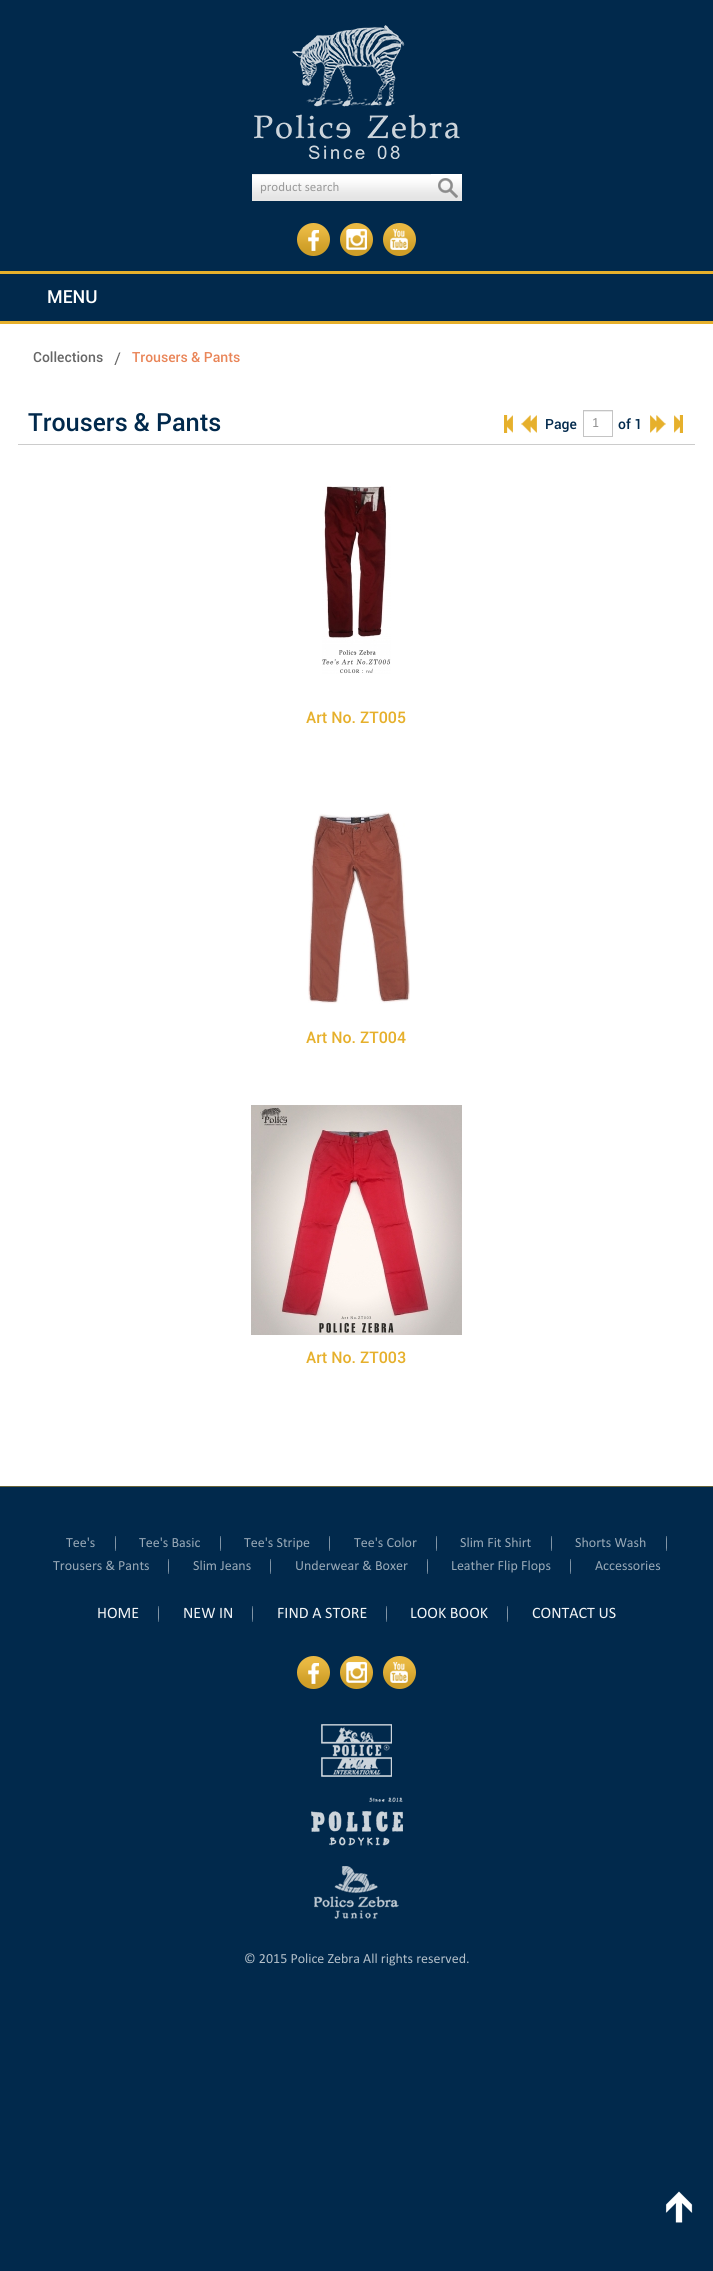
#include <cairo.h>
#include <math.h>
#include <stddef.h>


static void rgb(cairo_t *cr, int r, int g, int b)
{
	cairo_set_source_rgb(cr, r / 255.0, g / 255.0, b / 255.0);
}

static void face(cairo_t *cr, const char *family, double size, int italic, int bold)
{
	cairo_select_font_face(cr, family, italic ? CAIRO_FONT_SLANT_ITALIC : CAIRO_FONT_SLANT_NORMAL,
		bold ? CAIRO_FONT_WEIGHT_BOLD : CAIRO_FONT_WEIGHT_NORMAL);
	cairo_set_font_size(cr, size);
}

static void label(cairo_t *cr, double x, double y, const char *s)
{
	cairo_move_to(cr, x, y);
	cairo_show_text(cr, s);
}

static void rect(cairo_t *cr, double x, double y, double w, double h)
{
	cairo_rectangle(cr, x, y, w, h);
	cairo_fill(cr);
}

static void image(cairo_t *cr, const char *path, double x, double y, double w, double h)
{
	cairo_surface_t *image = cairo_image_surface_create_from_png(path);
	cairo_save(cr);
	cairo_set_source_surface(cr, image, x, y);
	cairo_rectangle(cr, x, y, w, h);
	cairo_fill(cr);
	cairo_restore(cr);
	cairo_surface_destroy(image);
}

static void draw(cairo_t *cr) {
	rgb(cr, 1, 41, 76);
	cairo_paint(cr);
	image(cr, "image0.png", 254, 25, 206, 134);
	image(cr, "image1.png", 252, 174, 210, 27);
	rgb(cr, 236, 236, 236);
	rect(cr, 252, 174, 179, 1);
	face(cr, "Calibri", 13, 0, 0);
	rgb(cr, 153, 153, 153);
	label(cr, 260, 191, "product search");
	image(cr, "image2.png", 438, 178, 20, 20);
	image(cr, "image3.png", 297, 223, 33, 33);
	image(cr, "image4.png", 340, 223, 33, 33);
	image(cr, "image5.png", 383, 223, 33, 33);
	rgb(cr, 230, 176, 44);
	rect(cr, 0, 271, 713, 3);
	rect(cr, 0, 321, 713, 3);
	face(cr, "Roboto Medium", 18, 0, 0);
	rgb(cr, 255, 255, 255);
	label(cr, 47, 303, "MENU");
	rect(cr, 0, 324, 713, 1162);
	image(cr, "image6.png", 114, 352, 7, 13);
	face(cr, "Roboto Medium", 14, 0, 0);
	rgb(cr, 102, 102, 102);
	label(cr, 33, 362, "Collections");
	rgb(cr, 233, 133, 88);
	label(cr, 132, 362, "Trousers & Pants");
	rgb(cr, 204, 204, 204);
	rect(cr, 18, 444, 677, 1);
	face(cr, "Roboto Medium", 25, 0, 0);
	rgb(cr, 1, 41, 76);
	label(cr, 28, 431, "Trousers & Pants");
	image(cr, "image7.png", 504, 415, 9, 18);
	image(cr, "image8.png", 521, 415, 16, 18);
	face(cr, "Roboto Medium", 14, 0, 0);
	label(cr, 545, 429, "Page");
	rgb(cr, 236, 236, 236);
	rect(cr, 584, 411, 28, 1);
	cairo_rectangle(cr, 583.5, 410.5, 29, 26);
	rgb(cr, 196, 196, 196);
	cairo_set_line_width(cr, 1);
	cairo_stroke(cr);
	face(cr, "Calibri", 14, 0, 0);
	rgb(cr, 144, 144, 144);
	label(cr, 592, 427, "1");
	face(cr, "Roboto Medium", 14, 0, 0);
	rgb(cr, 1, 41, 76);
	label(cr, 618, 429, "of 1");
	image(cr, "image9.png", 650, 415, 16, 18);
	image(cr, "image10.png", 674, 415, 9, 18);
	image(cr, "image11.png", 322, 486, 69, 188);
	face(cr, "Roboto Medium", 16, 0, 0);
	rgb(cr, 230, 176, 44);
	label(cr, 306, 723, "Art No. ZT005");
	image(cr, "image12.png", 308, 812, 102, 192);
	label(cr, 306, 1043, "Art No. ZT004");
	image(cr, "image13.png", 251, 1105, 211, 230);
	label(cr, 306, 1363, "Art No. ZT003");
	rgb(cr, 104, 100, 58);
	rect(cr, 0, 1486, 713, 1);
	face(cr, "Calibri", 14, 0, 0);
	rgb(cr, 153, 169, 183);
	label(cr, 66, 1547, "Tee's");
	image(cr, "image14.png", 115, 1536, 1, 15);
	label(cr, 139, 1547, "Tee's Basic");
	image(cr, "image14.png", 220, 1536, 1, 15);
	label(cr, 244, 1547, "Tee's Stripe");
	image(cr, "image14.png", 329, 1536, 1, 15);
	label(cr, 354, 1547, "Tee's Color");
	image(cr, "image14.png", 436, 1536, 1, 15);
	label(cr, 460, 1547, "Slim Fit Shirt");
	image(cr, "image14.png", 551, 1536, 1, 15);
	label(cr, 575, 1547, "Shorts Wash");
	image(cr, "image14.png", 666, 1536, 1, 15);
	label(cr, 53, 1570, "Trousers & Pants");
	image(cr, "image14.png", 168, 1559, 1, 15);
	label(cr, 193, 1570, "Slim Jeans");
	image(cr, "image14.png", 270, 1559, 1, 15);
	label(cr, 295, 1570, "Underwear & Boxer");
	image(cr, "image14.png", 427, 1559, 1, 15);
	label(cr, 451, 1570, "Leather Flip Flops");
	image(cr, "image14.png", 570, 1559, 1, 15);
	label(cr, 595, 1570, "Accessories");
	face(cr, "Calibri", 16, 0, 0);
	rgb(cr, 242, 244, 246);
	label(cr, 97, 1618, "HOME");
	image(cr, "image15.png", 158, 1606, 1, 16);
	label(cr, 183, 1618, "NEW IN");
	image(cr, "image15.png", 252, 1606, 1, 16);
	label(cr, 277, 1618, "FIND A STORE");
	image(cr, "image15.png", 386, 1606, 1, 16);
	label(cr, 410, 1618, "LOOK BOOK");
	image(cr, "image15.png", 507, 1606, 1, 16);
	label(cr, 532, 1618, "CONTACT US");
	image(cr, "image3.png", 297, 1656, 33, 33);
	image(cr, "image4.png", 340, 1656, 33, 33);
	image(cr, "image5.png", 383, 1656, 33, 33);
	image(cr, "image16.png", 321, 1724, 71, 53);
	image(cr, "image17.png", 311, 1797, 92, 49);
	image(cr, "image18.png", 314, 1866, 85, 53);
	face(cr, "Calibri", 14, 0, 0);
	rgb(cr, 179, 191, 201);
	label(cr, 244, 1963, "© 2015 Police Zebra All rights reserved.");
	image(cr, "image19.png", 665, 2191, 28, 32);
}

int main(void) {
	cairo_surface_t *surface = cairo_image_surface_create(CAIRO_FORMAT_RGB24, 713, 2271);
	cairo_t *cr = cairo_create(surface);
	cairo_font_options_t *options = cairo_font_options_create();
	cairo_font_options_set_hint_metrics(options, CAIRO_HINT_METRICS_OFF);
	cairo_font_options_set_hint_style(options, CAIRO_HINT_STYLE_NONE);
	cairo_set_font_options(cr, options);
	cairo_set_miter_limit(cr, 4);
	draw(cr);
	cairo_surface_write_to_png(surface, "render.png");
	cairo_font_options_destroy(options);
	cairo_destroy(cr);
	cairo_surface_destroy(surface);
	return 0;
}
